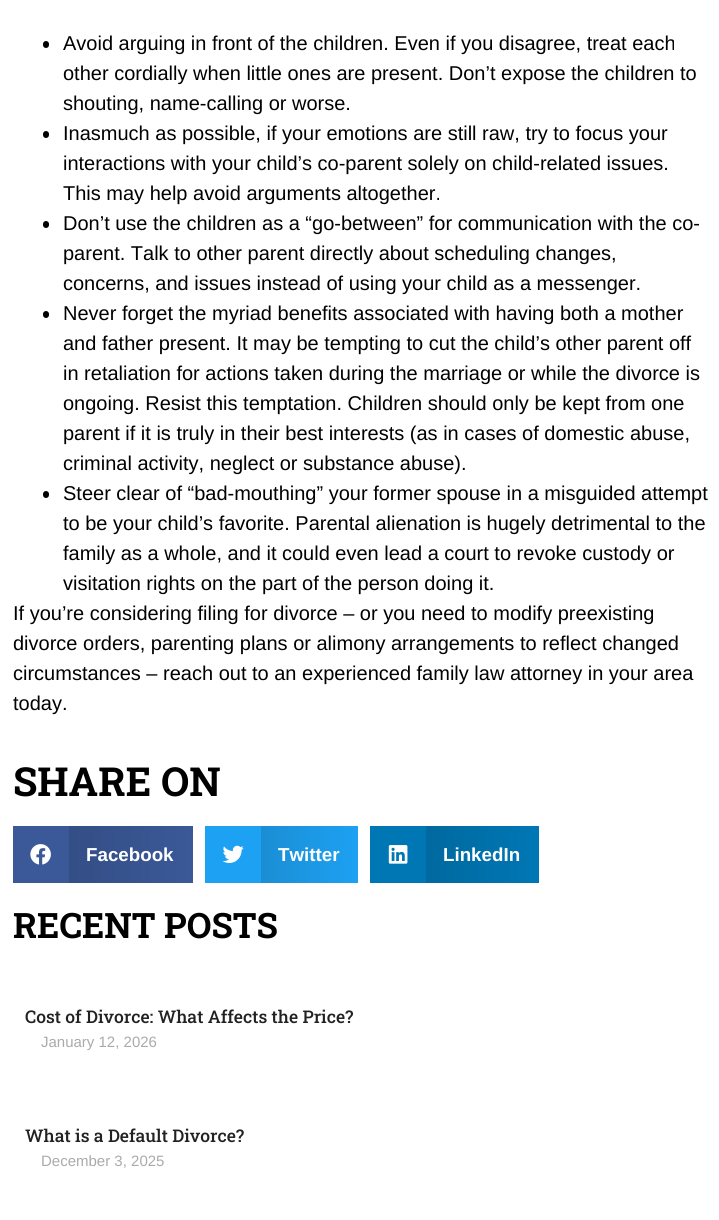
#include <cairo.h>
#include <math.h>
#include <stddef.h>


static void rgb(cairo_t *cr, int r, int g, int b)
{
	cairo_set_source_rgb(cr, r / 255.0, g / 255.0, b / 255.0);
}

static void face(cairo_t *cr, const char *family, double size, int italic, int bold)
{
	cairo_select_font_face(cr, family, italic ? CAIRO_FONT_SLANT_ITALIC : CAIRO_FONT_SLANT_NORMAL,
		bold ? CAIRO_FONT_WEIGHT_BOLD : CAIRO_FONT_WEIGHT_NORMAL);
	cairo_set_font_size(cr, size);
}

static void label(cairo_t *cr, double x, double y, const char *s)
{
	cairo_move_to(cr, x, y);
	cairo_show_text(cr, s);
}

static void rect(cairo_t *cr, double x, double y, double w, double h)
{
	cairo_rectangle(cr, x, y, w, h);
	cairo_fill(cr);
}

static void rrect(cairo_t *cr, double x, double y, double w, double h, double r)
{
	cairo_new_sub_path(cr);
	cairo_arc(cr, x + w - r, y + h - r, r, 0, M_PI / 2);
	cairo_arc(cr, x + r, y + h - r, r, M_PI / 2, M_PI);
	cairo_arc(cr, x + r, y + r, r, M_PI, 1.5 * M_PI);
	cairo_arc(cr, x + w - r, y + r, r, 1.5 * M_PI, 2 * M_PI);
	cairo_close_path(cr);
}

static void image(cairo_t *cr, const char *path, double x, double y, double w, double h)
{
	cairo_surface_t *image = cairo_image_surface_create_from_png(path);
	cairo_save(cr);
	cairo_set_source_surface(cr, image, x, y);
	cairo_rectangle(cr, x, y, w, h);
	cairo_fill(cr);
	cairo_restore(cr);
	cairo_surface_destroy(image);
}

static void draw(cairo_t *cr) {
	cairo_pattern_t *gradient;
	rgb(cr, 255, 255, 255);
	cairo_paint(cr);
	rgb(cr, 0, 0, 0);
	rrect(cr, 43, 41, 6, 7, 3);
	cairo_fill(cr);
	face(cr, "Liberation Sans", 20, 0, 0);
	label(cr, 63, 50, "Avoid arguing in front of the children. Even if you disagree, treat each");
	label(cr, 63, 80, "other cordially when little ones are present. Don’t expose the children to");
	label(cr, 63, 110, "shouting, name-calling or worse.");
	rrect(cr, 43, 131, 6, 7, 3);
	cairo_fill(cr);
	label(cr, 63, 140, "Inasmuch as possible, if your emotions are still raw, try to focus your");
	label(cr, 63, 170, "interactions with your child’s co-parent solely on child-related issues.");
	label(cr, 63, 200, "This may help avoid arguments altogether.");
	rrect(cr, 43, 221, 6, 7, 3);
	cairo_fill(cr);
	label(cr, 63, 230, "Don’t use the children as a “go-between” for communication with the co-");
	label(cr, 63, 260, "parent. Talk to other parent directly about scheduling changes,");
	label(cr, 63, 290, "concerns, and issues instead of using your child as a messenger.");
	rrect(cr, 43, 311, 6, 7, 3);
	cairo_fill(cr);
	label(cr, 63, 320, "Never forget the myriad benefits associated with having both a mother");
	label(cr, 63, 350, "and father present. It may be tempting to cut the child’s other parent off");
	label(cr, 63, 380, "in retaliation for actions taken during the marriage or while the divorce is");
	label(cr, 63, 410, "ongoing. Resist this temptation. Children should only be kept from one");
	label(cr, 63, 440, "parent if it is truly in their best interests (as in cases of domestic abuse,");
	label(cr, 63, 470, "criminal activity, neglect or substance abuse).");
	rrect(cr, 43, 491, 6, 7, 3);
	cairo_fill(cr);
	label(cr, 63, 500, "Steer clear of “bad-mouthing” your former spouse in a misguided attempt");
	label(cr, 63, 530, "to be your child’s favorite. Parental alienation is hugely detrimental to the");
	label(cr, 63, 560, "family as a whole, and it could even lead a court to revoke custody or");
	label(cr, 63, 590, "visitation rights on the part of the person doing it.");
	label(cr, 13, 620, "If you’re considering filing for divorce – or you need to modify preexisting");
	label(cr, 13, 650, "divorce orders, parenting plans or alimony arrangements to reflect changed");
	label(cr, 13, 680, "circumstances – reach out to an experienced family law attorney in your area");
	label(cr, 13, 710, "today.");
	face(cr, "Roboto Slab", 40, 0, 1);
	label(cr, 13, 796, "SHARE ON");
	rgb(cr, 59, 89, 152);
	rect(cr, 13, 826, 56, 57);
	image(cr, "image0.png", 30, 844, 21, 21);
	gradient = cairo_pattern_create_linear(69, 854, 193, 854);
	cairo_pattern_add_color_stop_rgba(gradient, 0, 0.204, 0.306, 0.525, 1);
	cairo_pattern_add_color_stop_rgba(gradient, 1, 0.231, 0.349, 0.596, 1);
	cairo_set_source(cr, gradient);
	cairo_pattern_destroy(gradient);
	rect(cr, 69, 826, 124, 57);
	face(cr, "Liberation Sans", 18.75, 0, 1);
	rgb(cr, 255, 255, 255);
	label(cr, 86, 861, "Facebook");
	rgb(cr, 29, 161, 242);
	rect(cr, 205, 826, 56, 57);
	image(cr, "image1.png", 223, 845, 21, 18);
	gradient = cairo_pattern_create_linear(261, 854, 358, 854);
	cairo_pattern_add_color_stop_rgba(gradient, 0, 0.102, 0.557, 0.835, 1);
	cairo_pattern_add_color_stop_rgba(gradient, 1, 0.114, 0.631, 0.949, 1);
	cairo_set_source(cr, gradient);
	cairo_pattern_destroy(gradient);
	rect(cr, 261, 826, 97, 57);
	rgb(cr, 255, 255, 255);
	label(cr, 278, 861, "Twitter");
	rgb(cr, 0, 119, 181);
	rect(cr, 370, 826, 56, 57);
	image(cr, "image2.png", 388, 845, 20, 19);
	gradient = cairo_pattern_create_linear(426, 854, 539, 854);
	cairo_pattern_add_color_stop_rgba(gradient, 0, 0, 0.412, 0.624, 1);
	cairo_pattern_add_color_stop_rgba(gradient, 1, 0, 0.467, 0.71, 1);
	cairo_set_source(cr, gradient);
	cairo_pattern_destroy(gradient);
	rect(cr, 426, 826, 113, 57);
	rgb(cr, 255, 255, 255);
	label(cr, 443, 861, "LinkedIn");
	face(cr, "Roboto Slab", 35, 0, 1);
	rgb(cr, 0, 0, 0);
	label(cr, 13, 938, "RECENT POSTS");
	face(cr, "Roboto Slab Medium", 17.5, 0, 0);
	rgb(cr, 34, 34, 34);
	label(cr, 25, 1023, "Cost of Divorce: What Affects the Price?");
	face(cr, "Liberation Sans", 15, 0, 0);
	rgb(cr, 170, 170, 170);
	label(cr, 41, 1047, "January 12, 2026");
	face(cr, "Roboto Slab Medium", 17.5, 0, 0);
	rgb(cr, 34, 34, 34);
	label(cr, 25, 1142, "What is a Default Divorce?");
	face(cr, "Liberation Sans", 15, 0, 0);
	rgb(cr, 170, 170, 170);
	label(cr, 41, 1166, "December 3, 2025");
}

int main(void) {
	cairo_surface_t *surface = cairo_image_surface_create(CAIRO_FORMAT_RGB24, 719, 1220);
	cairo_t *cr = cairo_create(surface);
	cairo_font_options_t *options = cairo_font_options_create();
	cairo_font_options_set_hint_metrics(options, CAIRO_HINT_METRICS_OFF);
	cairo_font_options_set_hint_style(options, CAIRO_HINT_STYLE_NONE);
	cairo_set_font_options(cr, options);
	cairo_set_miter_limit(cr, 4);
	draw(cr);
	cairo_surface_write_to_png(surface, "render.png");
	cairo_font_options_destroy(options);
	cairo_destroy(cr);
	cairo_surface_destroy(surface);
	return 0;
}
